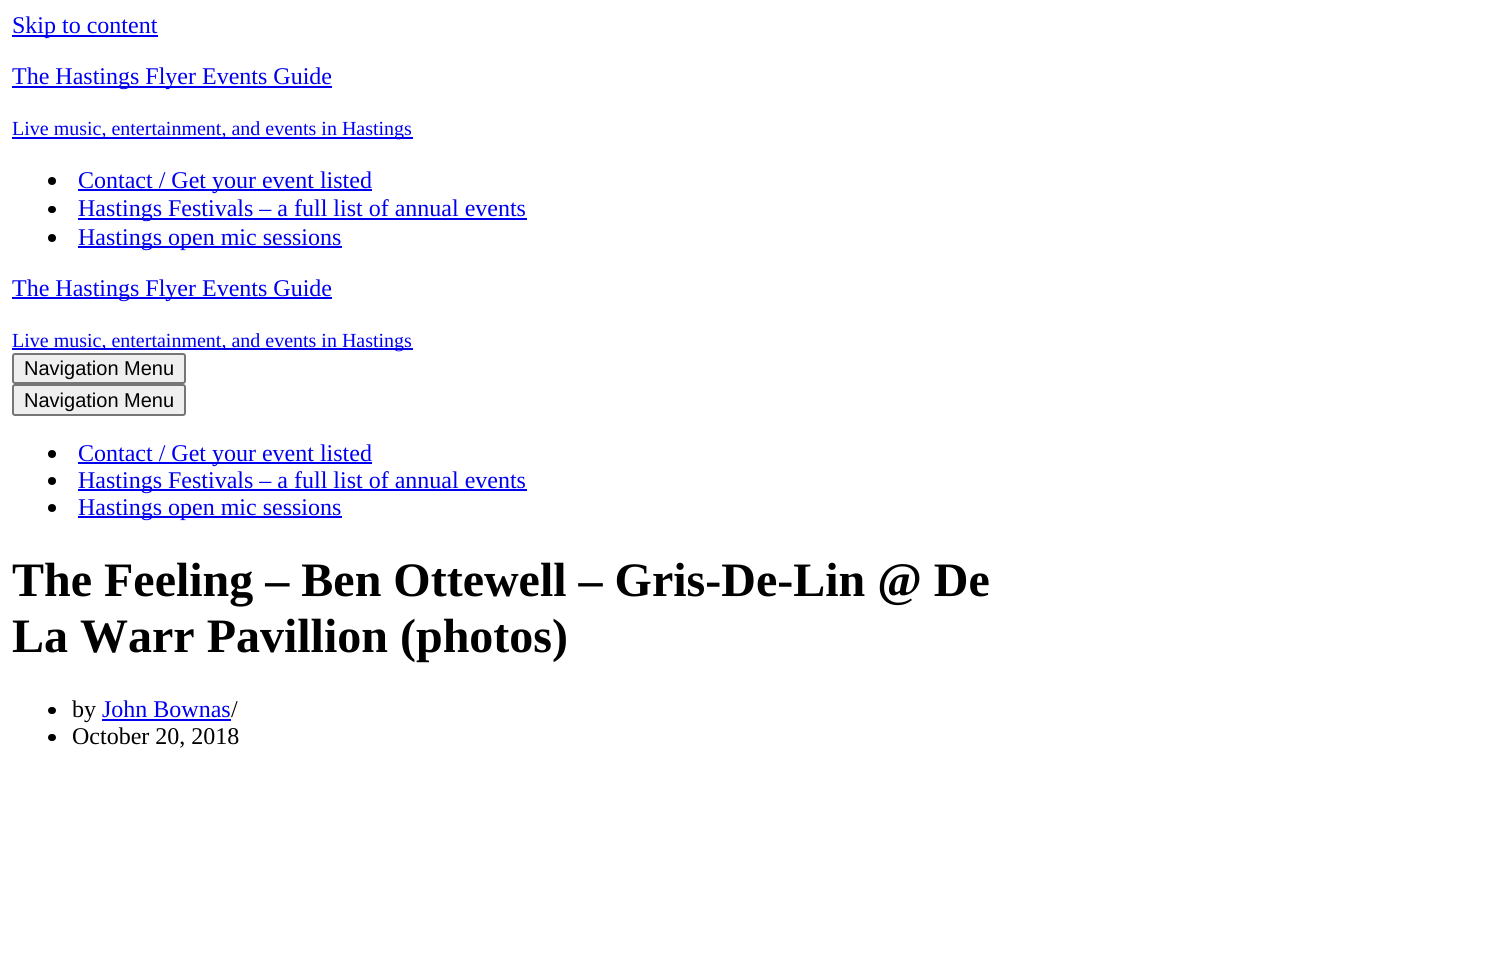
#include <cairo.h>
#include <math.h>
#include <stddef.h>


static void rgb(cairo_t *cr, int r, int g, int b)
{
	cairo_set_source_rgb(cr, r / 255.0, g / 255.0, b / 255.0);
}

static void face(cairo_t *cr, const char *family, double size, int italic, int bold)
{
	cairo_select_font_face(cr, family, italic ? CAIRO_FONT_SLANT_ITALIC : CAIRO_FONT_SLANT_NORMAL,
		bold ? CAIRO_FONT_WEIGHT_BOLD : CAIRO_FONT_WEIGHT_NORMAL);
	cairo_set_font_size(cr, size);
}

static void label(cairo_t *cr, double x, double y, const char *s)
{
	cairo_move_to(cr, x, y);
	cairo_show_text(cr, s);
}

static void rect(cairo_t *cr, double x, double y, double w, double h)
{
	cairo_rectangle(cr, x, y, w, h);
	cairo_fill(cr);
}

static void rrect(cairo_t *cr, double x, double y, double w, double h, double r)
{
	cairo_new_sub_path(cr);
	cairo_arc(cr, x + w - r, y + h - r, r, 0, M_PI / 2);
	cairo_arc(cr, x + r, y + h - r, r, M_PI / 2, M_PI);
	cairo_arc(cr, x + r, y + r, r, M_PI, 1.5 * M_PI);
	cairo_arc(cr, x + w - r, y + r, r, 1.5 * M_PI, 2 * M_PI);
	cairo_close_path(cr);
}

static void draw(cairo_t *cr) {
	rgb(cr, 255, 255, 255);
	cairo_paint(cr);
	rgb(cr, 0, 0, 238);
	rect(cr, 12, 35, 146, 2);
	face(cr, "Liberation Serif", 24, 0, 0);
	label(cr, 12, 33, "Skip to content");
	rect(cr, 12, 86, 320, 2);
	label(cr, 12, 84, "The Hastings Flyer Events Guide");
	rect(cr, 12, 137, 401, 2);
	face(cr, "Liberation Serif", 20, 0, 0);
	label(cr, 12, 135, "Live music, entertainment, and events in Hastings");
	rgb(cr, 0, 0, 0);
	cairo_new_path(cr);
	cairo_arc(cr, 52, 181, 4, 0, 2 * M_PI);
	cairo_fill(cr);
	rgb(cr, 0, 0, 238);
	rect(cr, 78, 189, 294, 2);
	face(cr, "Liberation Serif", 24, 0, 0);
	label(cr, 78, 188, "Contact / Get your event listed");
	rgb(cr, 0, 0, 0);
	rrect(cr, 48, 206, 8, 7, 3.5);
	cairo_fill(cr);
	rgb(cr, 0, 0, 238);
	rect(cr, 78, 218, 449, 2);
	label(cr, 78, 216, "Hastings Festivals – a full list of annual events");
	rgb(cr, 0, 0, 0);
	cairo_new_path(cr);
	cairo_arc(cr, 52, 238, 4, 0, 2 * M_PI);
	cairo_fill(cr);
	rgb(cr, 0, 0, 238);
	rect(cr, 78, 246, 264, 2);
	label(cr, 78, 245, "Hastings open mic sessions");
	rect(cr, 12, 297, 320, 2);
	label(cr, 12, 296, "The Hastings Flyer Events Guide");
	rect(cr, 12, 348, 401, 2);
	face(cr, "Liberation Serif", 20, 0, 0);
	label(cr, 12, 347, "Live music, entertainment, and events in Hastings");
	rgb(cr, 239, 239, 239);
	rrect(cr, 13, 354, 172, 29, 2);
	cairo_fill_preserve(cr);
	rgb(cr, 118, 118, 118);
	cairo_stroke(cr);
	face(cr, "Liberation Sans", 20, 0, 0);
	rgb(cr, 0, 0, 0);
	label(cr, 24, 375, "Navigation Menu");
	rgb(cr, 239, 239, 239);
	rrect(cr, 13, 385, 172, 30, 2);
	cairo_fill_preserve(cr);
	rgb(cr, 118, 118, 118);
	cairo_stroke(cr);
	rgb(cr, 0, 0, 0);
	label(cr, 24, 407, "Navigation Menu");
	cairo_new_path(cr);
	cairo_arc(cr, 52, 454, 4, 0, 2 * M_PI);
	cairo_fill(cr);
	rgb(cr, 0, 0, 238);
	rect(cr, 78, 462, 294, 2);
	face(cr, "Liberation Serif", 24, 0, 0);
	label(cr, 78, 461, "Contact / Get your event listed");
	rgb(cr, 0, 0, 0);
	cairo_new_path(cr);
	cairo_arc(cr, 52, 481, 4, 0, 2 * M_PI);
	cairo_fill(cr);
	rgb(cr, 0, 0, 238);
	rect(cr, 78, 489, 449, 2);
	label(cr, 78, 488, "Hastings Festivals – a full list of annual events");
	rgb(cr, 0, 0, 0);
	cairo_new_path(cr);
	cairo_arc(cr, 52, 508, 4, 0, 2 * M_PI);
	cairo_fill(cr);
	rgb(cr, 0, 0, 238);
	rect(cr, 78, 516, 264, 2);
	label(cr, 78, 515, "Hastings open mic sessions");
	face(cr, "Liberation Serif", 48, 0, 1);
	rgb(cr, 0, 0, 0);
	label(cr, 12, 596, "The Feeling – Ben Ottewell – Gris-De-Lin @ De");
	label(cr, 12, 652, "La Warr Pavillion (photos)");
	rrect(cr, 48, 707, 8, 7, 3.5);
	cairo_fill(cr);
	face(cr, "Liberation Serif", 24, 0, 0);
	label(cr, 72, 717, "by");
	rgb(cr, 0, 0, 238);
	label(cr, 102, 717, "John Bownas");
	rect(cr, 102, 719, 129, 2);
	rgb(cr, 0, 0, 0);
	label(cr, 231, 717, "/");
	rrect(cr, 48, 734, 8, 7, 3.5);
	cairo_fill(cr);
	label(cr, 72, 744, "October 20, 2018");
}

int main(void) {
	cairo_surface_t *surface = cairo_image_surface_create(CAIRO_FORMAT_RGB24, 1489, 954);
	cairo_t *cr = cairo_create(surface);
	cairo_font_options_t *options = cairo_font_options_create();
	cairo_font_options_set_hint_metrics(options, CAIRO_HINT_METRICS_OFF);
	cairo_font_options_set_hint_style(options, CAIRO_HINT_STYLE_NONE);
	cairo_set_font_options(cr, options);
	cairo_set_miter_limit(cr, 4);
	draw(cr);
	cairo_surface_write_to_png(surface, "render.png");
	cairo_font_options_destroy(options);
	cairo_destroy(cr);
	cairo_surface_destroy(surface);
	return 0;
}
